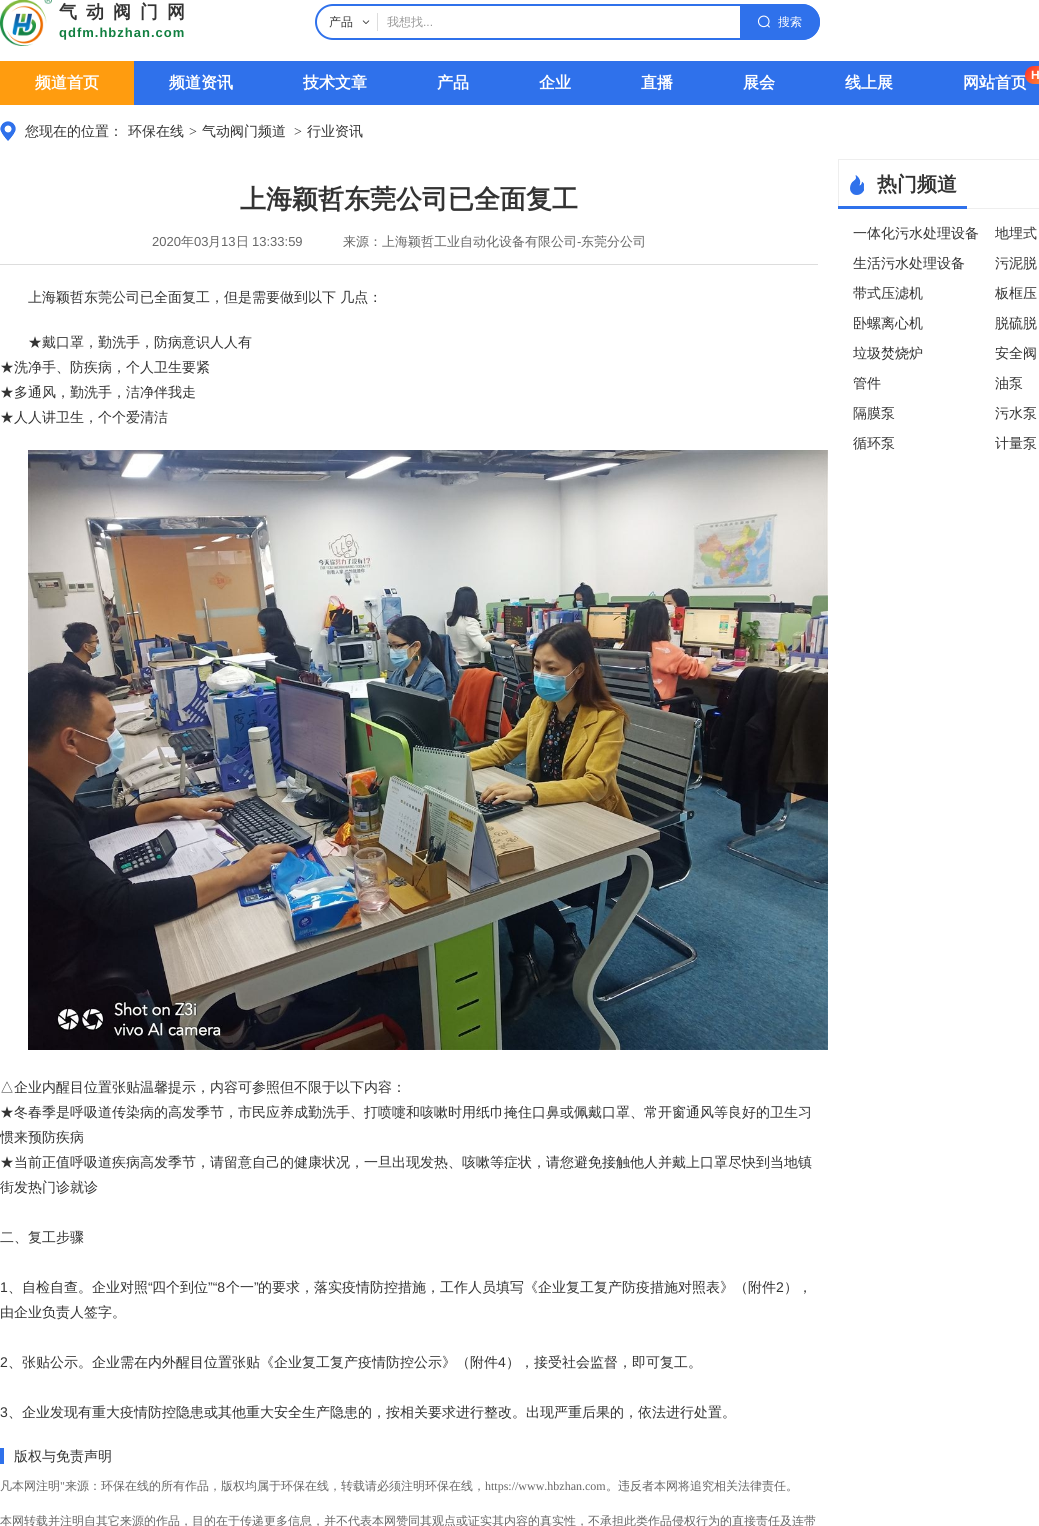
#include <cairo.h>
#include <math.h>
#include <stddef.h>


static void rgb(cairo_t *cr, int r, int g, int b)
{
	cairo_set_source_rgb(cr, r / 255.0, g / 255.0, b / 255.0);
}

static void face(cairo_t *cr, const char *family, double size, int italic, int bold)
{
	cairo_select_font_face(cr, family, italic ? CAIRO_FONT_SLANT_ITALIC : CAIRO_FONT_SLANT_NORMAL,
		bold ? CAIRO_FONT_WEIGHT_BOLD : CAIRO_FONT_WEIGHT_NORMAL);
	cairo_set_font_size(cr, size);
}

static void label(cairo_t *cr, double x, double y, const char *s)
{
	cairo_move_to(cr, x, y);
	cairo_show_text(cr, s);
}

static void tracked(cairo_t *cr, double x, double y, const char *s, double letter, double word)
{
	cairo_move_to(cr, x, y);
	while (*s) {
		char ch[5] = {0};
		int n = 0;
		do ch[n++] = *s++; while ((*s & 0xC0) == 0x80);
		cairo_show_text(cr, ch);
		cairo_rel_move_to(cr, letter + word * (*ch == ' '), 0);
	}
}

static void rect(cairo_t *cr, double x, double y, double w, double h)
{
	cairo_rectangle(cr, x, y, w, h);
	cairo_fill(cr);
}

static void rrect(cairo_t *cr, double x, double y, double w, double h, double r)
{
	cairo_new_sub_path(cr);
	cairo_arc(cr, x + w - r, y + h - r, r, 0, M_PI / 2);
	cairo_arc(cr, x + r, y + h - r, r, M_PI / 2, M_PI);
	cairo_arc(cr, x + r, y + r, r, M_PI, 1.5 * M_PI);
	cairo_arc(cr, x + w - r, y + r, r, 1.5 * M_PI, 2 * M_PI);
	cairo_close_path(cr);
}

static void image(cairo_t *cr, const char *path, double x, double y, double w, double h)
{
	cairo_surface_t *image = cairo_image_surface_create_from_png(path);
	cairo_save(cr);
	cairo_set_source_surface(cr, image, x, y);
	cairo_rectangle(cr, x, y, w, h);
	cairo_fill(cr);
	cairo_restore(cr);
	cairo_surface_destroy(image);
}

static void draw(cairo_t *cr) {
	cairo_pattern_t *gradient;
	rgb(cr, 255, 255, 255);
	cairo_paint(cr);
	image(cr, "image0.png", 0, 0, 52, 46);
	face(cr, "WenQuanYi Zen Hei", 18, 0, 1);
	rgb(cr, 51, 51, 51);
	tracked(cr, 59, 18, "气动阀门网", 9, 0);
	face(cr, "Liberation Sans", 13, 0, 1);
	rgb(cr, 17, 127, 64);
	tracked(cr, 59, 37, "qdfm.hbzhan.com", 1, 0);
	rgb(cr, 47, 113, 235);
	rrect(cr, 315, 4, 505, 36, 18);
	cairo_fill(cr);
	rgb(cr, 255, 255, 255);
	cairo_new_path(cr);
	cairo_move_to(cr, 333, 6);
	cairo_line_to(cr, 377, 6);
	cairo_line_to(cr, 377, 38);
	cairo_line_to(cr, 333, 38);
	cairo_curve_to(cr, 324, 38, 317, 31, 317, 22);
	cairo_curve_to(cr, 317, 13, 324, 6, 333, 6);
	cairo_close_path(cr);
	cairo_fill(cr);
	rect(cr, 377, 6, 363, 32);
	rgb(cr, 221, 221, 221);
	rect(cr, 377, 13, 1, 18);
	face(cr, "WenQuanYi Zen Hei Medium", 12, 0, 0);
	rgb(cr, 51, 51, 51);
	label(cr, 329, 26, "产品");
	image(cr, "image1.png", 362, 20, 8, 4);
	rgb(cr, 153, 153, 153);
	label(cr, 387, 26, "我想找");
	face(cr, "Liberation Sans", 12, 0, 0);
	label(cr, 423, 26, "...");
	rgb(cr, 47, 113, 235);
	cairo_new_path(cr);
	cairo_move_to(cr, 740, 4);
	cairo_line_to(cr, 802, 4);
	cairo_curve_to(cr, 812, 4, 820, 12, 820, 22);
	cairo_curve_to(cr, 820, 32, 812, 40, 802, 40);
	cairo_line_to(cr, 740, 40);
	cairo_close_path(cr);
	cairo_fill(cr);
	image(cr, "image2.png", 757, 15, 13, 13);
	face(cr, "WenQuanYi Zen Hei Medium", 12, 0, 0);
	rgb(cr, 255, 255, 255);
	label(cr, 778, 26, "搜索");
	rgb(cr, 47, 113, 235);
	rect(cr, 134, 61, 905, 44);
	rgb(cr, 255, 156, 15);
	rect(cr, 0, 61, 134, 44);
	face(cr, "WenQuanYi Zen Hei", 16, 0, 1);
	rgb(cr, 255, 255, 255);
	label(cr, 35, 88, "频道首页");
	label(cr, 169, 88, "频道资讯");
	label(cr, 303, 88, "技术文章");
	label(cr, 437, 88, "产品");
	label(cr, 539, 88, "企业");
	label(cr, 641, 88, "直播");
	label(cr, 743, 88, "展会");
	label(cr, 845, 88, "线上展");
	label(cr, 963, 88, "网站首页");
	gradient = cairo_pattern_create_linear(1028, 62, 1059, 88);
	cairo_pattern_add_color_stop_rgba(gradient, 0, 1, 0.169, 0.169, 1);
	cairo_pattern_add_color_stop_rgba(gradient, 1, 1, 0.753, 0.227, 1);
	cairo_set_source(cr, gradient);
	cairo_pattern_destroy(gradient);
	rrect(cr, 1025, 66, 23, 18, 9);
	cairo_fill(cr);
	face(cr, "Liberation Sans", 12, 0, 1);
	rgb(cr, 255, 255, 255);
	label(cr, 1031, 79, "H");
	image(cr, "image3.png", 0, 121, 16, 20);
	face(cr, "WenQuanYi Zen Hei Medium", 14, 0, 0);
	rgb(cr, 51, 51, 51);
	label(cr, 25, 136, "您现在的位置：");
	label(cr, 128, 136, "环保在线");
	face(cr, "Liberation Serif", 14, 0, 0);
	label(cr, 189, 136, ">");
	face(cr, "WenQuanYi Zen Hei Medium", 14, 0, 0);
	label(cr, 202, 136, "气动阀门频道");
	face(cr, "Liberation Serif", 14, 0, 0);
	label(cr, 294, 136, ">");
	face(cr, "WenQuanYi Zen Hei Medium", 14, 0, 0);
	label(cr, 307, 136, "行业资讯");
	face(cr, "WenQuanYi Zen Hei", 26, 0, 1);
	label(cr, 240, 208, "上海颖哲东莞公司已全面复工");
	rgb(cr, 221, 221, 221);
	rect(cr, 0, 264, 818, 1);
	face(cr, "Liberation Sans", 13, 0, 0);
	rgb(cr, 102, 102, 102);
	label(cr, 152, 246, "2020");
	face(cr, "WenQuanYi Zen Hei Medium", 13, 0, 0);
	label(cr, 181, 246, "年");
	face(cr, "Liberation Sans", 13, 0, 0);
	label(cr, 194, 246, "03");
	face(cr, "WenQuanYi Zen Hei Medium", 13, 0, 0);
	label(cr, 208, 246, "月");
	face(cr, "Liberation Sans", 13, 0, 0);
	label(cr, 221, 246, "13");
	face(cr, "WenQuanYi Zen Hei Medium", 13, 0, 0);
	label(cr, 236, 246, "日");
	face(cr, "Liberation Sans", 13, 0, 0);
	label(cr, 252, 246, "13:33:59");
	face(cr, "WenQuanYi Zen Hei Medium", 13, 0, 0);
	label(cr, 343, 246, "来源：上海颖哲工业自动化设备有限公司");
	face(cr, "Liberation Sans", 13, 0, 0);
	label(cr, 577, 246, "-");
	face(cr, "WenQuanYi Zen Hei Medium", 13, 0, 0);
	label(cr, 581, 246, "东莞分公司");
	face(cr, "WenQuanYi Zen Hei Medium", 14, 0, 0);
	rgb(cr, 51, 51, 51);
	label(cr, 28, 302, "上海颖哲东莞公司已全面复工，但是需要做到以下 几点：");
	label(cr, 28, 347, "★戴口罩，勤洗手，防病意识人人有");
	label(cr, 0, 372, "★洗净手、防疾病，个人卫生要紧");
	label(cr, 0, 397, "★多通风，勤洗手，洁净伴我走");
	label(cr, 0, 422, "★人人讲卫生，个个爱清洁");
	image(cr, "image4.png", 28, 450, 800, 600);
	label(cr, 0, 1092, "△企业内醒目位置张贴温馨提示，内容可参照但不限于以下内容：");
	label(cr, 0, 1117, "★冬春季是呼吸道传染病的高发季节，市民应养成勤洗手、打喷嚏和咳嗽时用纸巾掩住口鼻或佩戴口罩、常开窗通风等良好的卫生习");
	label(cr, 0, 1142, "惯来预防疾病");
	label(cr, 0, 1167, "★当前正值呼吸道疾病高发季节，请留意自己的健康状况，一旦出现发热、咳嗽等症状，请您避免接触他人并戴上口罩尽快到当地镇");
	label(cr, 0, 1192, "街发热门诊就诊");
	label(cr, 0, 1242, "二、复工步骤");
	face(cr, "Liberation Sans", 14, 0, 0);
	label(cr, 0, 1292, "1");
	face(cr, "WenQuanYi Zen Hei Medium", 14, 0, 0);
	label(cr, 8, 1292, "、自检自查。企业对照");
	face(cr, "Liberation Sans", 14, 0, 0);
	label(cr, 148, 1292, "“");
	face(cr, "WenQuanYi Zen Hei Medium", 14, 0, 0);
	label(cr, 152, 1292, "四个到位");
	face(cr, "Liberation Sans", 14, 0, 0);
	label(cr, 208, 1292, "”“8");
	face(cr, "WenQuanYi Zen Hei Medium", 14, 0, 0);
	label(cr, 226, 1292, "个一");
	face(cr, "Liberation Sans", 14, 0, 0);
	label(cr, 254, 1292, "”");
	face(cr, "WenQuanYi Zen Hei Medium", 14, 0, 0);
	label(cr, 258, 1292, "的要求，落实疫情防控措施，工作人员填写《企业复工复产防疫措施对照表》（附件");
	face(cr, "Liberation Sans", 14, 0, 0);
	label(cr, 776, 1292, "2");
	face(cr, "WenQuanYi Zen Hei Medium", 14, 0, 0);
	label(cr, 784, 1292, "），");
	label(cr, 0, 1317, "由企业负责人签字。");
	face(cr, "Liberation Sans", 14, 0, 0);
	label(cr, 0, 1367, "2");
	face(cr, "WenQuanYi Zen Hei Medium", 14, 0, 0);
	label(cr, 8, 1367, "、张贴公示。企业需在内外醒目位置张贴《企业复工复产疫情防控公示》（附件");
	face(cr, "Liberation Sans", 14, 0, 0);
	label(cr, 498, 1367, "4");
	face(cr, "WenQuanYi Zen Hei Medium", 14, 0, 0);
	label(cr, 506, 1367, "），接受社会监督，即可复工。");
	face(cr, "Liberation Sans", 14, 0, 0);
	label(cr, 0, 1417, "3");
	face(cr, "WenQuanYi Zen Hei Medium", 14, 0, 0);
	label(cr, 8, 1417, "、企业发现有重大疫情防控隐患或其他重大安全生产隐患的，按相关要求进行整改。出现严重后果的，依法进行处置。");
	rgb(cr, 47, 113, 235);
	rect(cr, 0, 1448, 4, 16);
	rgb(cr, 51, 51, 51);
	label(cr, 14, 1461, "版权与免责声明");
	face(cr, "WenQuanYi Zen Hei Medium", 12, 0, 0);
	rgb(cr, 102, 102, 102);
	label(cr, 0, 1490, "凡本网注明");
	face(cr, "Liberation Serif", 12, 0, 0);
	label(cr, 60, 1490, "\"");
	face(cr, "WenQuanYi Zen Hei Medium", 12, 0, 0);
	label(cr, 65, 1490, "来源：环保在线的所有作品，版权均属于环保在线，转载请必须注明环保在线，");
	face(cr, "Liberation Serif", 12, 0, 0);
	label(cr, 485, 1490, "https://www.hbzhan.com");
	face(cr, "WenQuanYi Zen Hei Medium", 12, 0, 0);
	label(cr, 606, 1490, "。违反者本网将追究相关法律责任。");
	label(cr, 0, 1525, "本网转载并注明自其它来源的作品，目的在于传递更多信息，并不代表本网赞同其观点或证实其内容的真实性，不承担此类作品侵权行为的直接责任及连带");
	cairo_rectangle(cr, 838.5, 159.5, 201, 49);
	rgb(cr, 238, 238, 238);
	cairo_set_line_width(cr, 1);
	cairo_stroke(cr);
	image(cr, "image5.png", 850, 175, 14, 20);
	rgb(cr, 47, 113, 235);
	rect(cr, 838, 206, 129, 3);
	face(cr, "WenQuanYi Zen Hei", 20, 0, 1);
	rgb(cr, 51, 51, 51);
	label(cr, 877, 191, "热门频道");
	face(cr, "WenQuanYi Zen Hei Medium", 14, 0, 0);
	label(cr, 853, 238, "一体化污水处理设备");
	label(cr, 995, 238, "地埋式");
	label(cr, 853, 268, "生活污水处理设备");
	label(cr, 995, 268, "污泥脱");
	label(cr, 853, 298, "带式压滤机");
	label(cr, 995, 298, "板框压");
	label(cr, 853, 328, "卧螺离心机");
	label(cr, 995, 328, "脱硫脱");
	label(cr, 853, 358, "垃圾焚烧炉");
	label(cr, 995, 358, "安全阀");
	label(cr, 853, 388, "管件");
	label(cr, 995, 388, "油泵");
	label(cr, 853, 418, "隔膜泵");
	label(cr, 995, 418, "污水泵");
	label(cr, 853, 448, "循环泵");
	label(cr, 995, 448, "计量泵");
}

int main(void) {
	cairo_surface_t *surface = cairo_image_surface_create(CAIRO_FORMAT_RGB24, 1039, 1526);
	cairo_t *cr = cairo_create(surface);
	cairo_font_options_t *options = cairo_font_options_create();
	cairo_font_options_set_hint_metrics(options, CAIRO_HINT_METRICS_OFF);
	cairo_font_options_set_hint_style(options, CAIRO_HINT_STYLE_NONE);
	cairo_set_font_options(cr, options);
	cairo_set_miter_limit(cr, 4);
	draw(cr);
	cairo_surface_write_to_png(surface, "render.png");
	cairo_font_options_destroy(options);
	cairo_destroy(cr);
	cairo_surface_destroy(surface);
	return 0;
}
